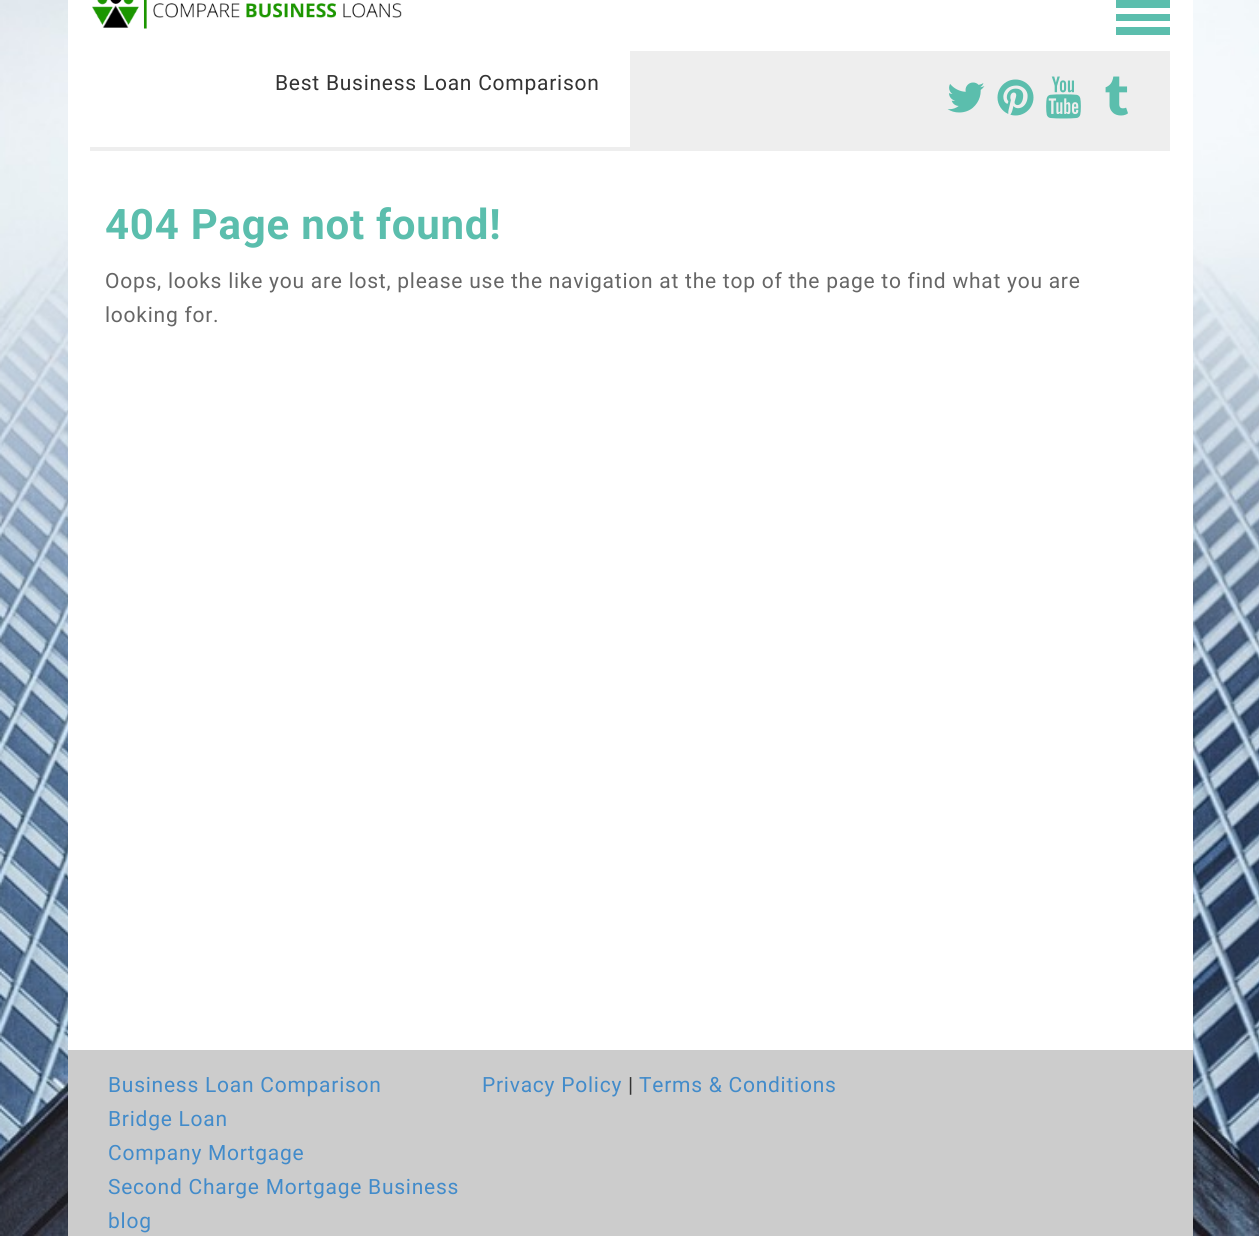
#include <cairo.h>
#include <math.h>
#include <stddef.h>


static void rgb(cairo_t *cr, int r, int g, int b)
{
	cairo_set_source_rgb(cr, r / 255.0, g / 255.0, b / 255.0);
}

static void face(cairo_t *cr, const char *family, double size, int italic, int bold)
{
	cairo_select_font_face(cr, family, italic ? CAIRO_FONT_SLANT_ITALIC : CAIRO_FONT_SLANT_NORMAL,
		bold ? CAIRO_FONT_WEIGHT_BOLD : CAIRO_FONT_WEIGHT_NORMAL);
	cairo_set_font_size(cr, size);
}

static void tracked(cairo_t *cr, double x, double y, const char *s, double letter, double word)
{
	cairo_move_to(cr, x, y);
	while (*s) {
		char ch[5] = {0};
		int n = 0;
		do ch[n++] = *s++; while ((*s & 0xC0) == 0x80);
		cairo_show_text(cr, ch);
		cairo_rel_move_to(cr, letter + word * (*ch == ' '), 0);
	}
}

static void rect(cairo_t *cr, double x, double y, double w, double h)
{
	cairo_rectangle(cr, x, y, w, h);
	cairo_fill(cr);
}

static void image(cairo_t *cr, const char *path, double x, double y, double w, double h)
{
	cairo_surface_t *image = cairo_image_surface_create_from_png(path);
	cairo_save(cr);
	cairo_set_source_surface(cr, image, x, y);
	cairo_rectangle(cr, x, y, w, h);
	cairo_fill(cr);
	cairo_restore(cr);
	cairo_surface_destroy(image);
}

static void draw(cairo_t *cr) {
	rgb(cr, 255, 255, 255);
	cairo_paint(cr);
	image(cr, "image0.png", 0, 0, 1259, 1236);
	rgb(cr, 255, 255, 255);
	rect(cr, 68, 0, 1125, 1050);
	rgb(cr, 238, 238, 238);
	rect(cr, 90, 147, 1080, 4);
	rgb(cr, 91, 190, 173);
	rect(cr, 1116, 0, 54, 8);
	rect(cr, 1116, 14, 54, 7);
	rect(cr, 1116, 27, 54, 8);
	image(cr, "image1.png", 92, 0, 310, 29);
	face(cr, "Roboto", 21, 0, 0);
	rgb(cr, 51, 51, 51);
	tracked(cr, 275, 90, "Best Business Loan Comparison", 0.75, 0);
	rgb(cr, 238, 238, 238);
	rect(cr, 630, 51, 540, 96);
	image(cr, "image2.png", 947, 82, 38, 31);
	image(cr, "image3.png", 997, 79, 37, 37);
	image(cr, "image4.png", 1046, 76, 35, 43);
	image(cr, "image5.png", 1105, 76, 23, 40);
	face(cr, "Roboto", 42, 0, 1);
	rgb(cr, 91, 190, 173);
	tracked(cr, 105, 239, "404 Page not found!", 0.75, 0);
	face(cr, "Roboto", 21, 0, 0);
	rgb(cr, 102, 102, 102);
	tracked(cr, 105, 288, "Oops, looks like you are lost, please use the navigation at the top of the page to find what you are", 0.75, 0);
	tracked(cr, 105, 322, "looking for.", 0.75, 0);
	rgb(cr, 204, 204, 204);
	rect(cr, 68, 1050, 1125, 186);
	rgb(cr, 66, 139, 202);
	tracked(cr, 108, 1092, "Business Loan Comparison", 0.75, 0);
	tracked(cr, 108, 1126, "Bridge Loan", 0.75, 0);
	tracked(cr, 108, 1160, "Company Mortgage", 0.75, 0);
	tracked(cr, 108, 1194, "Second Charge Mortgage Business", 0.75, 0);
	tracked(cr, 108, 1228, "blog", 0.75, 0);
	tracked(cr, 482, 1092, "Privacy Policy", 0.75, 0);
	rgb(cr, 51, 51, 51);
	tracked(cr, 628, 1092, "|", 0.75, 0);
	rgb(cr, 66, 139, 202);
	tracked(cr, 639, 1092, "Terms & Conditions", 0.75, 0);
}

int main(void) {
	cairo_surface_t *surface = cairo_image_surface_create(CAIRO_FORMAT_RGB24, 1259, 1236);
	cairo_t *cr = cairo_create(surface);
	cairo_font_options_t *options = cairo_font_options_create();
	cairo_font_options_set_hint_metrics(options, CAIRO_HINT_METRICS_OFF);
	cairo_font_options_set_hint_style(options, CAIRO_HINT_STYLE_NONE);
	cairo_set_font_options(cr, options);
	cairo_set_miter_limit(cr, 4);
	draw(cr);
	cairo_surface_write_to_png(surface, "render.png");
	cairo_font_options_destroy(options);
	cairo_destroy(cr);
	cairo_surface_destroy(surface);
	return 0;
}
